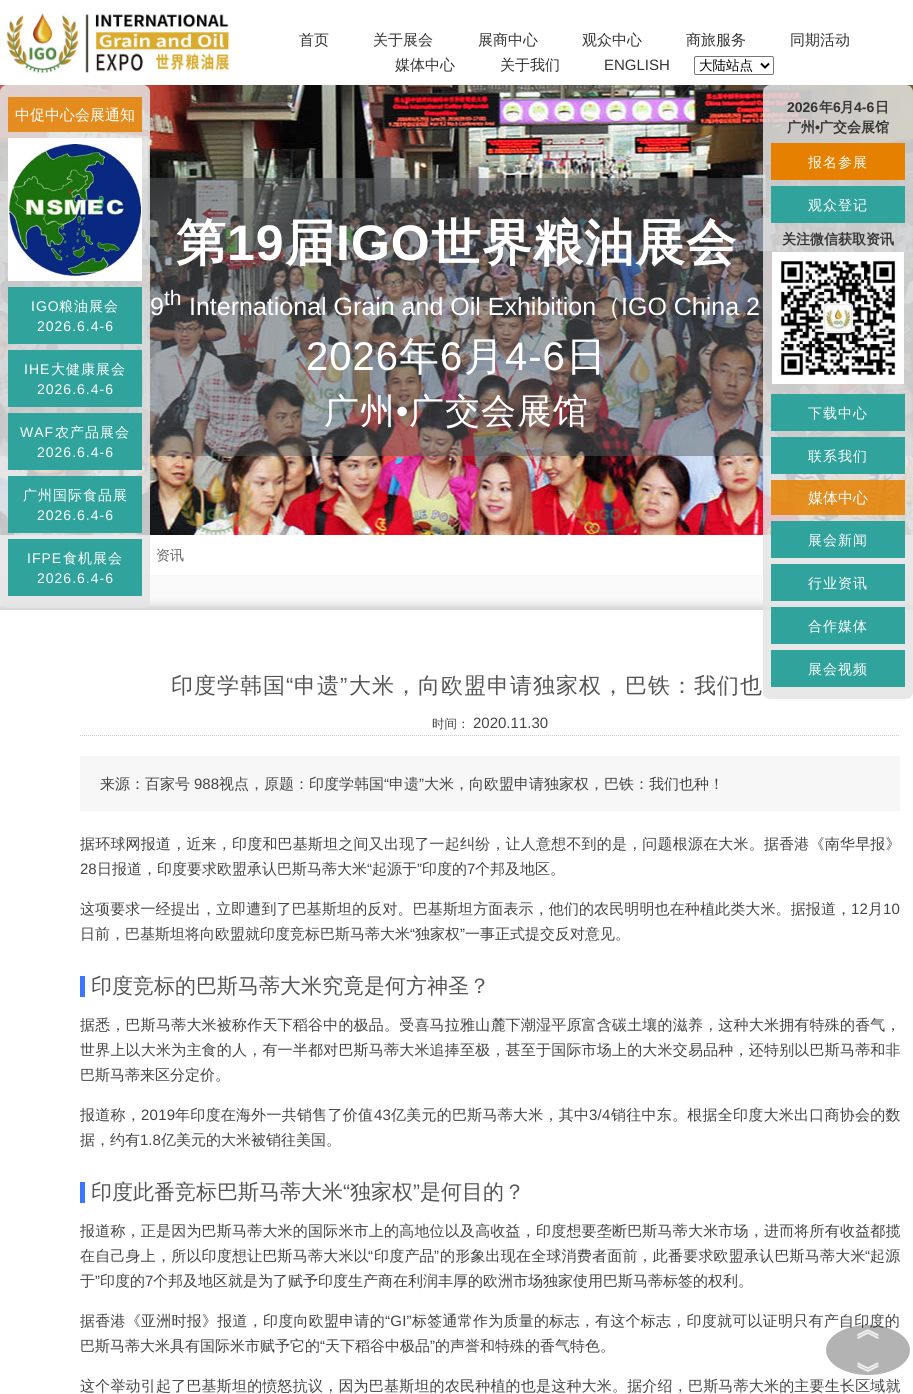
#include <cairo.h>
#include <math.h>
#include <stddef.h>


static void rgb(cairo_t *cr, int r, int g, int b)
{
	cairo_set_source_rgb(cr, r / 255.0, g / 255.0, b / 255.0);
}

static void face(cairo_t *cr, const char *family, double size, int italic, int bold)
{
	cairo_select_font_face(cr, family, italic ? CAIRO_FONT_SLANT_ITALIC : CAIRO_FONT_SLANT_NORMAL,
		bold ? CAIRO_FONT_WEIGHT_BOLD : CAIRO_FONT_WEIGHT_NORMAL);
	cairo_set_font_size(cr, size);
}

static void label(cairo_t *cr, double x, double y, const char *s)
{
	cairo_move_to(cr, x, y);
	cairo_show_text(cr, s);
}

static void tracked(cairo_t *cr, double x, double y, const char *s, double letter, double word)
{
	cairo_move_to(cr, x, y);
	while (*s) {
		char ch[5] = {0};
		int n = 0;
		do ch[n++] = *s++; while ((*s & 0xC0) == 0x80);
		cairo_show_text(cr, ch);
		cairo_rel_move_to(cr, letter + word * (*ch == ' '), 0);
	}
}

static void rect(cairo_t *cr, double x, double y, double w, double h)
{
	cairo_rectangle(cr, x, y, w, h);
	cairo_fill(cr);
}

static void rrect(cairo_t *cr, double x, double y, double w, double h, double r)
{
	cairo_new_sub_path(cr);
	cairo_arc(cr, x + w - r, y + h - r, r, 0, M_PI / 2);
	cairo_arc(cr, x + r, y + h - r, r, M_PI / 2, M_PI);
	cairo_arc(cr, x + r, y + r, r, M_PI, 1.5 * M_PI);
	cairo_arc(cr, x + w - r, y + r, r, 1.5 * M_PI, 2 * M_PI);
	cairo_close_path(cr);
}

static void soft_shadow(cairo_t *cr, double x, double y, double w, double h, double r, double blur, double alpha)
{
	cairo_push_group_with_content(cr, CAIRO_CONTENT_ALPHA);
	cairo_set_operator(cr, CAIRO_OPERATOR_SOURCE);
	for (int i = 15; i >= -15 && fmin(w, h) + blur * i / 3 > 0; i -= 2) {
		double e = blur * i / 6;
		cairo_set_source_rgba(cr, 0, 0, 0, alpha * erfc((i - 1) / 8.5) / 2);
		rrect(cr, x - e, y - e, w + 2 * e, h + 2 * e, fmax(0, fmin(r + e + blur * .6, fmin(w, h) / 2 + e)));
		cairo_fill(cr);
	}
	cairo_pattern_t *soft = cairo_pop_group(cr);
	cairo_mask(cr, soft);
	cairo_pattern_destroy(soft);
}

static void image(cairo_t *cr, const char *path, double x, double y, double w, double h)
{
	cairo_surface_t *image = cairo_image_surface_create_from_png(path);
	cairo_save(cr);
	cairo_set_source_surface(cr, image, x, y);
	cairo_rectangle(cr, x, y, w, h);
	cairo_fill(cr);
	cairo_restore(cr);
	cairo_surface_destroy(image);
}

static void draw(cairo_t *cr) {
	rgb(cr, 255, 255, 255);
	cairo_paint(cr);
	image(cr, "image0.png", 0, 85, 913, 450);
	image(cr, "image1.png", 6, 12, 225, 63);
	face(cr, "WenQuanYi Zen Hei Medium", 15, 0, 0);
	rgb(cr, 51, 51, 51);
	label(cr, 299, 45, "首页");
	label(cr, 373, 45, "关于展会");
	label(cr, 478, 45, "展商中心");
	label(cr, 582, 45, "观众中心");
	label(cr, 686, 45, "商旅服务");
	label(cr, 790, 45, "同期活动");
	label(cr, 395, 70, "媒体中心");
	label(cr, 500, 70, "关于我们");
	face(cr, "Liberation Sans", 15, 0, 0);
	label(cr, 604, 70, "ENGLISH");
	rrect(cr, 694.5, 56.5, 79, 18, 1.5);
	rgb(cr, 118, 118, 118);
	cairo_set_line_width(cr, 1);
	cairo_stroke(cr);
	cairo_new_path(cr);
	cairo_move_to(cr, 761, 63.5);
	cairo_line_to(cr, 765, 67.5);
	cairo_line_to(cr, 769, 63.5);
	rgb(cr, 0, 0, 0);
	cairo_set_line_width(cr, 2);
	cairo_stroke(cr);
	face(cr, "WenQuanYi Zen Hei Medium", 13.5, 0, 0);
	label(cr, 699, 70, "大陆站点");
	cairo_set_source_rgba(cr, 0.349, 0.365, 0.369, 0.5);
	rect(cr, 0, 178, 913, 278);
	rgb(cr, 249, 249, 249);
	rect(cr, 0, 575, 913, 35);
	rgb(cr, 204, 204, 204);
	soft_shadow(cr, -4, 606, 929, 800, 0, 4, 1);
	cairo_set_source_rgba(cr, 0.89, 0.89, 0.89, 0.85);
	rrect(cr, 0, 85, 150, 523, 7);
	cairo_fill(cr);
	cairo_set_source_rgba(cr, 0.898, 0.502, 0, 0.85);
	rect(cr, 8, 97, 134, 35);
	face(cr, "WenQuanYi Zen Hei Medium", 15, 0, 0);
	rgb(cr, 255, 255, 255);
	label(cr, 15, 120, "中促中心会展通知");
	rect(cr, 8, 138, 134, 143);
	image(cr, "image2.png", 9, 144, 132, 132);
	rgb(cr, 48, 163, 157);
	rect(cr, 8, 287, 134, 57);
	face(cr, "Liberation Sans", 14, 0, 0);
	rgb(cr, 255, 255, 255);
	tracked(cr, 31, 311, "IGO", 1, 0);
	face(cr, "WenQuanYi Zen Hei Medium", 14, 0, 0);
	tracked(cr, 59, 311, "粮油展会", 1, 0);
	face(cr, "Liberation Sans", 14, 0, 0);
	tracked(cr, 37, 331, "2026.6.4-6", 1, 0);
	rgb(cr, 48, 163, 157);
	rect(cr, 8, 350, 134, 57);
	rgb(cr, 255, 255, 255);
	tracked(cr, 24, 374, "IHE", 1, 0);
	face(cr, "WenQuanYi Zen Hei Medium", 14, 0, 0);
	tracked(cr, 51, 374, "大健康展会", 1, 0);
	face(cr, "Liberation Sans", 14, 0, 0);
	tracked(cr, 37, 394, "2026.6.4-6", 1, 0);
	rgb(cr, 48, 163, 157);
	rect(cr, 8, 413, 134, 57);
	rgb(cr, 255, 255, 255);
	tracked(cr, 20, 437, "WAF", 1, 0);
	face(cr, "WenQuanYi Zen Hei Medium", 14, 0, 0);
	tracked(cr, 55, 437, "农产品展会", 1, 0);
	face(cr, "Liberation Sans", 14, 0, 0);
	tracked(cr, 37, 457, "2026.6.4-6", 1, 0);
	rgb(cr, 48, 163, 157);
	rect(cr, 8, 476, 134, 57);
	face(cr, "WenQuanYi Zen Hei Medium", 14, 0, 0);
	rgb(cr, 255, 255, 255);
	tracked(cr, 23, 500, "广州国际食品展", 1, 0);
	face(cr, "Liberation Sans", 14, 0, 0);
	tracked(cr, 37, 520, "2026.6.4-6", 1, 0);
	rgb(cr, 48, 163, 157);
	rect(cr, 8, 539, 134, 57);
	rgb(cr, 255, 255, 255);
	tracked(cr, 27, 563, "IFPE", 1, 0);
	face(cr, "WenQuanYi Zen Hei Medium", 14, 0, 0);
	tracked(cr, 63, 563, "食机展会", 1, 0);
	face(cr, "Liberation Sans", 14, 0, 0);
	tracked(cr, 37, 583, "2026.6.4-6", 1, 0);
	face(cr, "WenQuanYi Zen Hei", 50, 0, 1);
	tracked(cr, 176, 260, "第", 1, 0);
	face(cr, "Liberation Sans", 50, 0, 1);
	tracked(cr, 227, 260, "19", 1, 0);
	face(cr, "WenQuanYi Zen Hei", 50, 0, 1);
	tracked(cr, 285, 260, "届", 1, 0);
	face(cr, "Liberation Sans", 50, 0, 1);
	tracked(cr, 336, 260, "IGO", 1, 0);
	face(cr, "WenQuanYi Zen Hei", 50, 0, 1);
	tracked(cr, 431, 260, "世界粮油展会", 1, 0);
	face(cr, "Liberation Sans", 25, 0, 0);
	label(cr, 150, 315, "9");
	face(cr, "Liberation Sans", 21, 0, 0);
	label(cr, 164, 305, "th");
	face(cr, "Liberation Sans", 25, 0, 0);
	label(cr, 189, 315, "International Grain and Oil Exhibition");
	face(cr, "WenQuanYi Zen Hei Medium", 25, 0, 0);
	label(cr, 596, 315, "（");
	face(cr, "Liberation Sans", 25, 0, 0);
	label(cr, 621, 315, "IGO China 2");
	face(cr, "Liberation Sans", 40, 0, 0);
	tracked(cr, 306, 370, "2026", 1, 0);
	face(cr, "WenQuanYi Zen Hei Medium", 40, 0, 0);
	tracked(cr, 399, 370, "年", 1, 0);
	face(cr, "Liberation Sans", 40, 0, 0);
	tracked(cr, 440, 370, "6", 1, 0);
	face(cr, "WenQuanYi Zen Hei Medium", 40, 0, 0);
	tracked(cr, 464, 370, "月", 1, 0);
	face(cr, "Liberation Sans", 40, 0, 0);
	tracked(cr, 505, 370, "4-6", 1, 0);
	face(cr, "WenQuanYi Zen Hei Medium", 40, 0, 0);
	tracked(cr, 566, 370, "日", 1, 0);
	face(cr, "WenQuanYi Zen Hei Medium", 35, 0, 0);
	tracked(cr, 324, 423, "广州", 1, 0);
	face(cr, "Liberation Sans", 35, 0, 0);
	tracked(cr, 396, 423, "•", 1, 0);
	face(cr, "WenQuanYi Zen Hei Medium", 35, 0, 0);
	tracked(cr, 409, 423, "广交会展馆", 1, 0);
	face(cr, "WenQuanYi Zen Hei Medium", 14, 0, 0);
	rgb(cr, 102, 102, 102);
	label(cr, 156, 560, "资讯");
	rgb(cr, 255, 255, 255);
	rect(cr, 0, 610, 913, 784);
	cairo_set_source_rgba(cr, 0.89, 0.89, 0.89, 0.85);
	rrect(cr, 763, 85, 150, 614, 7);
	cairo_fill(cr);
	face(cr, "Liberation Sans", 14, 0, 1);
	rgb(cr, 51, 51, 51);
	label(cr, 787, 112, "2026");
	face(cr, "WenQuanYi Zen Hei", 14, 0, 1);
	label(cr, 819, 112, "年");
	face(cr, "Liberation Sans", 14, 0, 1);
	label(cr, 833, 112, "6");
	face(cr, "WenQuanYi Zen Hei", 14, 0, 1);
	label(cr, 840, 112, "月");
	face(cr, "Liberation Sans", 14, 0, 1);
	label(cr, 854, 112, "4-6");
	face(cr, "WenQuanYi Zen Hei", 14, 0, 1);
	label(cr, 875, 112, "日");
	label(cr, 787, 132, "广州");
	face(cr, "Liberation Sans", 14, 0, 1);
	label(cr, 815, 132, "•");
	face(cr, "WenQuanYi Zen Hei", 14, 0, 1);
	label(cr, 819, 132, "广交会展馆");
	rgb(cr, 229, 128, 0);
	rect(cr, 771, 143, 134, 37);
	face(cr, "WenQuanYi Zen Hei Medium", 14, 0, 0);
	rgb(cr, 255, 255, 255);
	tracked(cr, 808, 167, "报名参展", 1, 0);
	rgb(cr, 48, 163, 157);
	rect(cr, 771, 186, 134, 37);
	rgb(cr, 255, 255, 255);
	tracked(cr, 808, 210, "观众登记", 1, 0);
	face(cr, "WenQuanYi Zen Hei", 14, 0, 1);
	rgb(cr, 51, 51, 51);
	label(cr, 782, 244, "关注微信获取资讯");
	image(cr, "image3.png", 772, 252, 132, 132);
	rgb(cr, 48, 163, 157);
	rect(cr, 771, 394, 134, 37);
	face(cr, "WenQuanYi Zen Hei Medium", 14, 0, 0);
	rgb(cr, 255, 255, 255);
	tracked(cr, 808, 418, "下载中心", 1, 0);
	rgb(cr, 48, 163, 157);
	rect(cr, 771, 437, 134, 37);
	rgb(cr, 255, 255, 255);
	tracked(cr, 808, 461, "联系我们", 1, 0);
	cairo_set_source_rgba(cr, 0.898, 0.502, 0, 0.85);
	rect(cr, 771, 480, 134, 35);
	face(cr, "WenQuanYi Zen Hei Medium", 15, 0, 0);
	rgb(cr, 255, 255, 255);
	label(cr, 808, 503, "媒体中心");
	rgb(cr, 48, 163, 157);
	rect(cr, 771, 521, 134, 37);
	face(cr, "WenQuanYi Zen Hei Medium", 14, 0, 0);
	rgb(cr, 255, 255, 255);
	tracked(cr, 808, 545, "展会新闻", 1, 0);
	rgb(cr, 48, 163, 157);
	rect(cr, 771, 564, 134, 37);
	rgb(cr, 255, 255, 255);
	tracked(cr, 808, 588, "行业资讯", 1, 0);
	rgb(cr, 48, 163, 157);
	rect(cr, 771, 607, 134, 37);
	rgb(cr, 255, 255, 255);
	tracked(cr, 808, 631, "合作媒体", 1, 0);
	rgb(cr, 48, 163, 157);
	rect(cr, 771, 650, 134, 37);
	rgb(cr, 255, 255, 255);
	tracked(cr, 808, 674, "展会视频", 1, 0);
	face(cr, "WenQuanYi Zen Hei Medium", 22, 0, 0);
	rgb(cr, 85, 85, 85);
	tracked(cr, 171, 693, "印度学韩国", 1, 0);
	face(cr, "Liberation Sans", 22, 0, 0);
	tracked(cr, 286, 693, "“", 1, 0);
	face(cr, "WenQuanYi Zen Hei Medium", 22, 0, 0);
	tracked(cr, 294, 693, "申遗", 1, 0);
	face(cr, "Liberation Sans", 22, 0, 0);
	tracked(cr, 340, 693, "”", 1, 0);
	face(cr, "WenQuanYi Zen Hei Medium", 22, 0, 0);
	tracked(cr, 349, 693, "大米，向欧盟申请独家权，巴铁：我们也", 1, 0);
	cairo_new_path(cr);
	cairo_move_to(cr, 80, 735.5);
	cairo_line_to(cr, 900, 735.5);
	rgb(cr, 204, 204, 204);
	cairo_set_line_width(cr, 1);
	cairo_set_dash(cr, (double[]){1, 1}, 2, 0);
	cairo_stroke(cr);
	face(cr, "WenQuanYi Zen Hei Medium", 12.5, 0, 0);
	rgb(cr, 68, 68, 68);
	label(cr, 432, 728, "时间：");
	face(cr, "Liberation Sans", 15, 0, 0);
	label(cr, 473, 728, "2020.11.30");
	rgb(cr, 247, 247, 247);
	rect(cr, 80, 756, 820, 55);
	face(cr, "WenQuanYi Zen Hei Medium", 15, 0, 0);
	rgb(cr, 68, 68, 68);
	label(cr, 100, 789, "来源：百家号");
	face(cr, "Liberation Sans", 15, 0, 0);
	label(cr, 194, 789, "988");
	face(cr, "WenQuanYi Zen Hei Medium", 15, 0, 0);
	label(cr, 219, 789, "视点，原题：印度学韩国");
	face(cr, "Liberation Sans", 15, 0, 0);
	label(cr, 384, 789, "“");
	face(cr, "WenQuanYi Zen Hei Medium", 15, 0, 0);
	label(cr, 389, 789, "申遗");
	face(cr, "Liberation Sans", 15, 0, 0);
	label(cr, 419, 789, "”");
	face(cr, "WenQuanYi Zen Hei Medium", 15, 0, 0);
	label(cr, 424, 789, "大米，向欧盟申请独家权，巴铁：我们也种！");
	tracked(cr, 80, 849, "据环球网报道，近来，印度和巴基斯坦之间又出现了一起纠纷，让人意想不到的是，问题根源在大米。据香港《南华早报》", 0.2, 0);
	face(cr, "Liberation Sans", 15, 0, 0);
	label(cr, 80, 874, "28");
	face(cr, "WenQuanYi Zen Hei Medium", 15, 0, 0);
	label(cr, 97, 874, "日报道，印度要求欧盟承认巴斯马蒂大米");
	face(cr, "Liberation Sans", 15, 0, 0);
	label(cr, 367, 874, "“");
	face(cr, "WenQuanYi Zen Hei Medium", 15, 0, 0);
	label(cr, 372, 874, "起源于");
	face(cr, "Liberation Sans", 15, 0, 0);
	label(cr, 417, 874, "”");
	face(cr, "WenQuanYi Zen Hei Medium", 15, 0, 0);
	label(cr, 422, 874, "印度的");
	face(cr, "Liberation Sans", 15, 0, 0);
	label(cr, 467, 874, "7");
	face(cr, "WenQuanYi Zen Hei Medium", 15, 0, 0);
	label(cr, 475, 874, "个邦及地区。");
	tracked(cr, 80, 914, "这项要求一经提出，立即遭到了巴基斯坦的反对。巴基斯坦方面表示，他们的农民明明也在种植此类大米。据报道，", 0.12, 0);
	face(cr, "Liberation Sans", 15, 0, 0);
	tracked(cr, 851, 914, "12", 0.12, 0);
	face(cr, "WenQuanYi Zen Hei Medium", 15, 0, 0);
	tracked(cr, 868, 914, "月", 0.12, 0);
	face(cr, "Liberation Sans", 15, 0, 0);
	tracked(cr, 883, 914, "10", 0.12, 0);
	face(cr, "WenQuanYi Zen Hei Medium", 15, 0, 0);
	label(cr, 80, 939, "日前，巴基斯坦将向欧盟就印度竞标巴斯马蒂大米");
	face(cr, "Liberation Sans", 15, 0, 0);
	label(cr, 410, 939, "“");
	face(cr, "WenQuanYi Zen Hei Medium", 15, 0, 0);
	label(cr, 415, 939, "独家权");
	face(cr, "Liberation Sans", 15, 0, 0);
	label(cr, 460, 939, "”");
	face(cr, "WenQuanYi Zen Hei Medium", 15, 0, 0);
	label(cr, 465, 939, "一事正式提交反对意见。");
	rgb(cr, 60, 118, 255);
	rect(cr, 80, 976, 5, 21);
	face(cr, "WenQuanYi Zen Hei Medium", 21, 0, 0);
	rgb(cr, 85, 85, 85);
	label(cr, 91, 993, "印度竞标的巴斯马蒂大米究竟是何方神圣？");
	face(cr, "WenQuanYi Zen Hei Medium", 15, 0, 0);
	rgb(cr, 68, 68, 68);
	tracked(cr, 80, 1030, "据悉，巴斯马蒂大米被称作天下稻谷中的极品。受喜马拉雅山麓下潮湿平原富含碳土壤的滋养，这种大米拥有特殊的香气，", 0.2, 0);
	tracked(cr, 80, 1055, "世界上以大米为主食的人，有一半都对巴斯马蒂大米追捧至极，甚至于国际市场上的大米交易品种，还特别以巴斯马蒂和非", 0.2, 0);
	label(cr, 80, 1080, "巴斯马蒂来区分定价。");
	tracked(cr, 80, 1120, "报道称，", 0.25, 0);
	face(cr, "Liberation Sans", 15, 0, 0);
	tracked(cr, 141, 1120, "2019", 0.25, 0);
	face(cr, "WenQuanYi Zen Hei Medium", 15, 0, 0);
	tracked(cr, 175, 1120, "年印度在海外一共销售了价值", 0.25, 0);
	face(cr, "Liberation Sans", 15, 0, 0);
	tracked(cr, 374, 1120, "43", 0.25, 0);
	face(cr, "WenQuanYi Zen Hei Medium", 15, 0, 0);
	tracked(cr, 391, 1120, "亿美元的巴斯马蒂大米，其中", 0.25, 0);
	face(cr, "Liberation Sans", 15, 0, 0);
	tracked(cr, 589, 1120, "3/4", 0.25, 0);
	face(cr, "WenQuanYi Zen Hei Medium", 15, 0, 0);
	tracked(cr, 611, 1120, "销往中东。根据全印度大米出口商协会的数", 0.25, 0);
	label(cr, 80, 1145, "据，约有");
	face(cr, "Liberation Sans", 15, 0, 0);
	label(cr, 140, 1145, "1.8");
	face(cr, "WenQuanYi Zen Hei Medium", 15, 0, 0);
	label(cr, 161, 1145, "亿美元的大米被销往美国。");
	rgb(cr, 60, 118, 255);
	rect(cr, 80, 1182, 5, 21);
	face(cr, "WenQuanYi Zen Hei Medium", 21, 0, 0);
	rgb(cr, 85, 85, 85);
	label(cr, 91, 1199, "印度此番竞标巴斯马蒂大米");
	face(cr, "Liberation Sans", 21, 0, 0);
	label(cr, 343, 1199, "“");
	face(cr, "WenQuanYi Zen Hei Medium", 21, 0, 0);
	label(cr, 350, 1199, "独家权");
	face(cr, "Liberation Sans", 21, 0, 0);
	label(cr, 413, 1199, "”");
	face(cr, "WenQuanYi Zen Hei Medium", 21, 0, 0);
	label(cr, 420, 1199, "是何目的？");
	face(cr, "WenQuanYi Zen Hei Medium", 15, 0, 0);
	rgb(cr, 68, 68, 68);
	tracked(cr, 80, 1236, "报道称，正是因为巴斯马蒂大米的国际米市上的高地位以及高收益，印度想要垄断巴斯马蒂大米市场，进而将所有收益都揽", 0.2, 0);
	tracked(cr, 80, 1261, "在自己身上，所以印度想让巴斯马蒂大米以", 0.2, 0);
	face(cr, "Liberation Sans", 15, 0, 0);
	tracked(cr, 368, 1261, "“", 0.2, 0);
	face(cr, "WenQuanYi Zen Hei Medium", 15, 0, 0);
	tracked(cr, 374, 1261, "印度产品", 0.2, 0);
	face(cr, "Liberation Sans", 15, 0, 0);
	tracked(cr, 434, 1261, "”", 0.2, 0);
	face(cr, "WenQuanYi Zen Hei Medium", 15, 0, 0);
	tracked(cr, 440, 1261, "的形象出现在全球消费者面前，此番要求欧盟承认巴斯马蒂大米", 0.2, 0);
	face(cr, "Liberation Sans", 15, 0, 0);
	tracked(cr, 865, 1261, "“", 0.2, 0);
	face(cr, "WenQuanYi Zen Hei Medium", 15, 0, 0);
	tracked(cr, 870, 1261, "起源", 0.2, 0);
	label(cr, 80, 1286, "于");
	face(cr, "Liberation Sans", 15, 0, 0);
	label(cr, 95, 1286, "”");
	face(cr, "WenQuanYi Zen Hei Medium", 15, 0, 0);
	label(cr, 100, 1286, "印度的");
	face(cr, "Liberation Sans", 15, 0, 0);
	label(cr, 145, 1286, "7");
	face(cr, "WenQuanYi Zen Hei Medium", 15, 0, 0);
	label(cr, 153, 1286, "个邦及地区就是为了赋予印度生产商在利润丰厚的欧洲市场独家使用巴斯马蒂标签的权利。");
	tracked(cr, 80, 1326, "据香港《亚洲时报》报道，印度向欧盟申请的", 0.25, 0);
	face(cr, "Liberation Sans", 15, 0, 0);
	tracked(cr, 385, 1326, "“GI”", 0.25, 0);
	face(cr, "WenQuanYi Zen Hei Medium", 15, 0, 0);
	tracked(cr, 412, 1326, "标签通常作为质量的标志，有这个标志，印度就可以证明只有产自印度的", 0.25, 0);
	label(cr, 80, 1351, "巴斯马蒂大米具有国际米市赋予它的");
	face(cr, "Liberation Sans", 15, 0, 0);
	label(cr, 320, 1351, "“");
	face(cr, "WenQuanYi Zen Hei Medium", 15, 0, 0);
	label(cr, 325, 1351, "天下稻谷中极品");
	face(cr, "Liberation Sans", 15, 0, 0);
	label(cr, 430, 1351, "”");
	face(cr, "WenQuanYi Zen Hei Medium", 15, 0, 0);
	label(cr, 435, 1351, "的声誉和特殊的香气特色。");
	tracked(cr, 80, 1391, "这个举动引起了巴基斯坦的愤怒抗议，因为巴基斯坦的农民种植的也是这种大米。据介绍，巴斯马蒂大米的主要生长区域就", 0.2, 0);
	cairo_set_source_rgba(cr, 0, 0, 0, 0.3);
	cairo_new_path(cr);
	cairo_move_to(cr, 868, 1325);
	cairo_curve_to(cr, 845, 1325, 826, 1336, 826, 1350);
	cairo_curve_to(cr, 826, 1364, 845, 1375, 868, 1375);
	cairo_curve_to(cr, 891, 1375, 910, 1364, 910, 1350);
	cairo_curve_to(cr, 910, 1336, 891, 1325, 868, 1325);
	cairo_close_path(cr);
	cairo_fill(cr);
	face(cr, "WenQuanYi Zen Hei", 25, 0, 1);
	rgb(cr, 239, 239, 239);
	label(cr, 856, 1337, "︽");
	label(cr, 856, 1380, "︾");
}

int main(void) {
	cairo_surface_t *surface = cairo_image_surface_create(CAIRO_FORMAT_RGB24, 913, 1394);
	cairo_t *cr = cairo_create(surface);
	cairo_font_options_t *options = cairo_font_options_create();
	cairo_font_options_set_hint_metrics(options, CAIRO_HINT_METRICS_OFF);
	cairo_font_options_set_hint_style(options, CAIRO_HINT_STYLE_NONE);
	cairo_set_font_options(cr, options);
	cairo_set_miter_limit(cr, 4);
	draw(cr);
	cairo_surface_write_to_png(surface, "render.png");
	cairo_font_options_destroy(options);
	cairo_destroy(cr);
	cairo_surface_destroy(surface);
	return 0;
}
